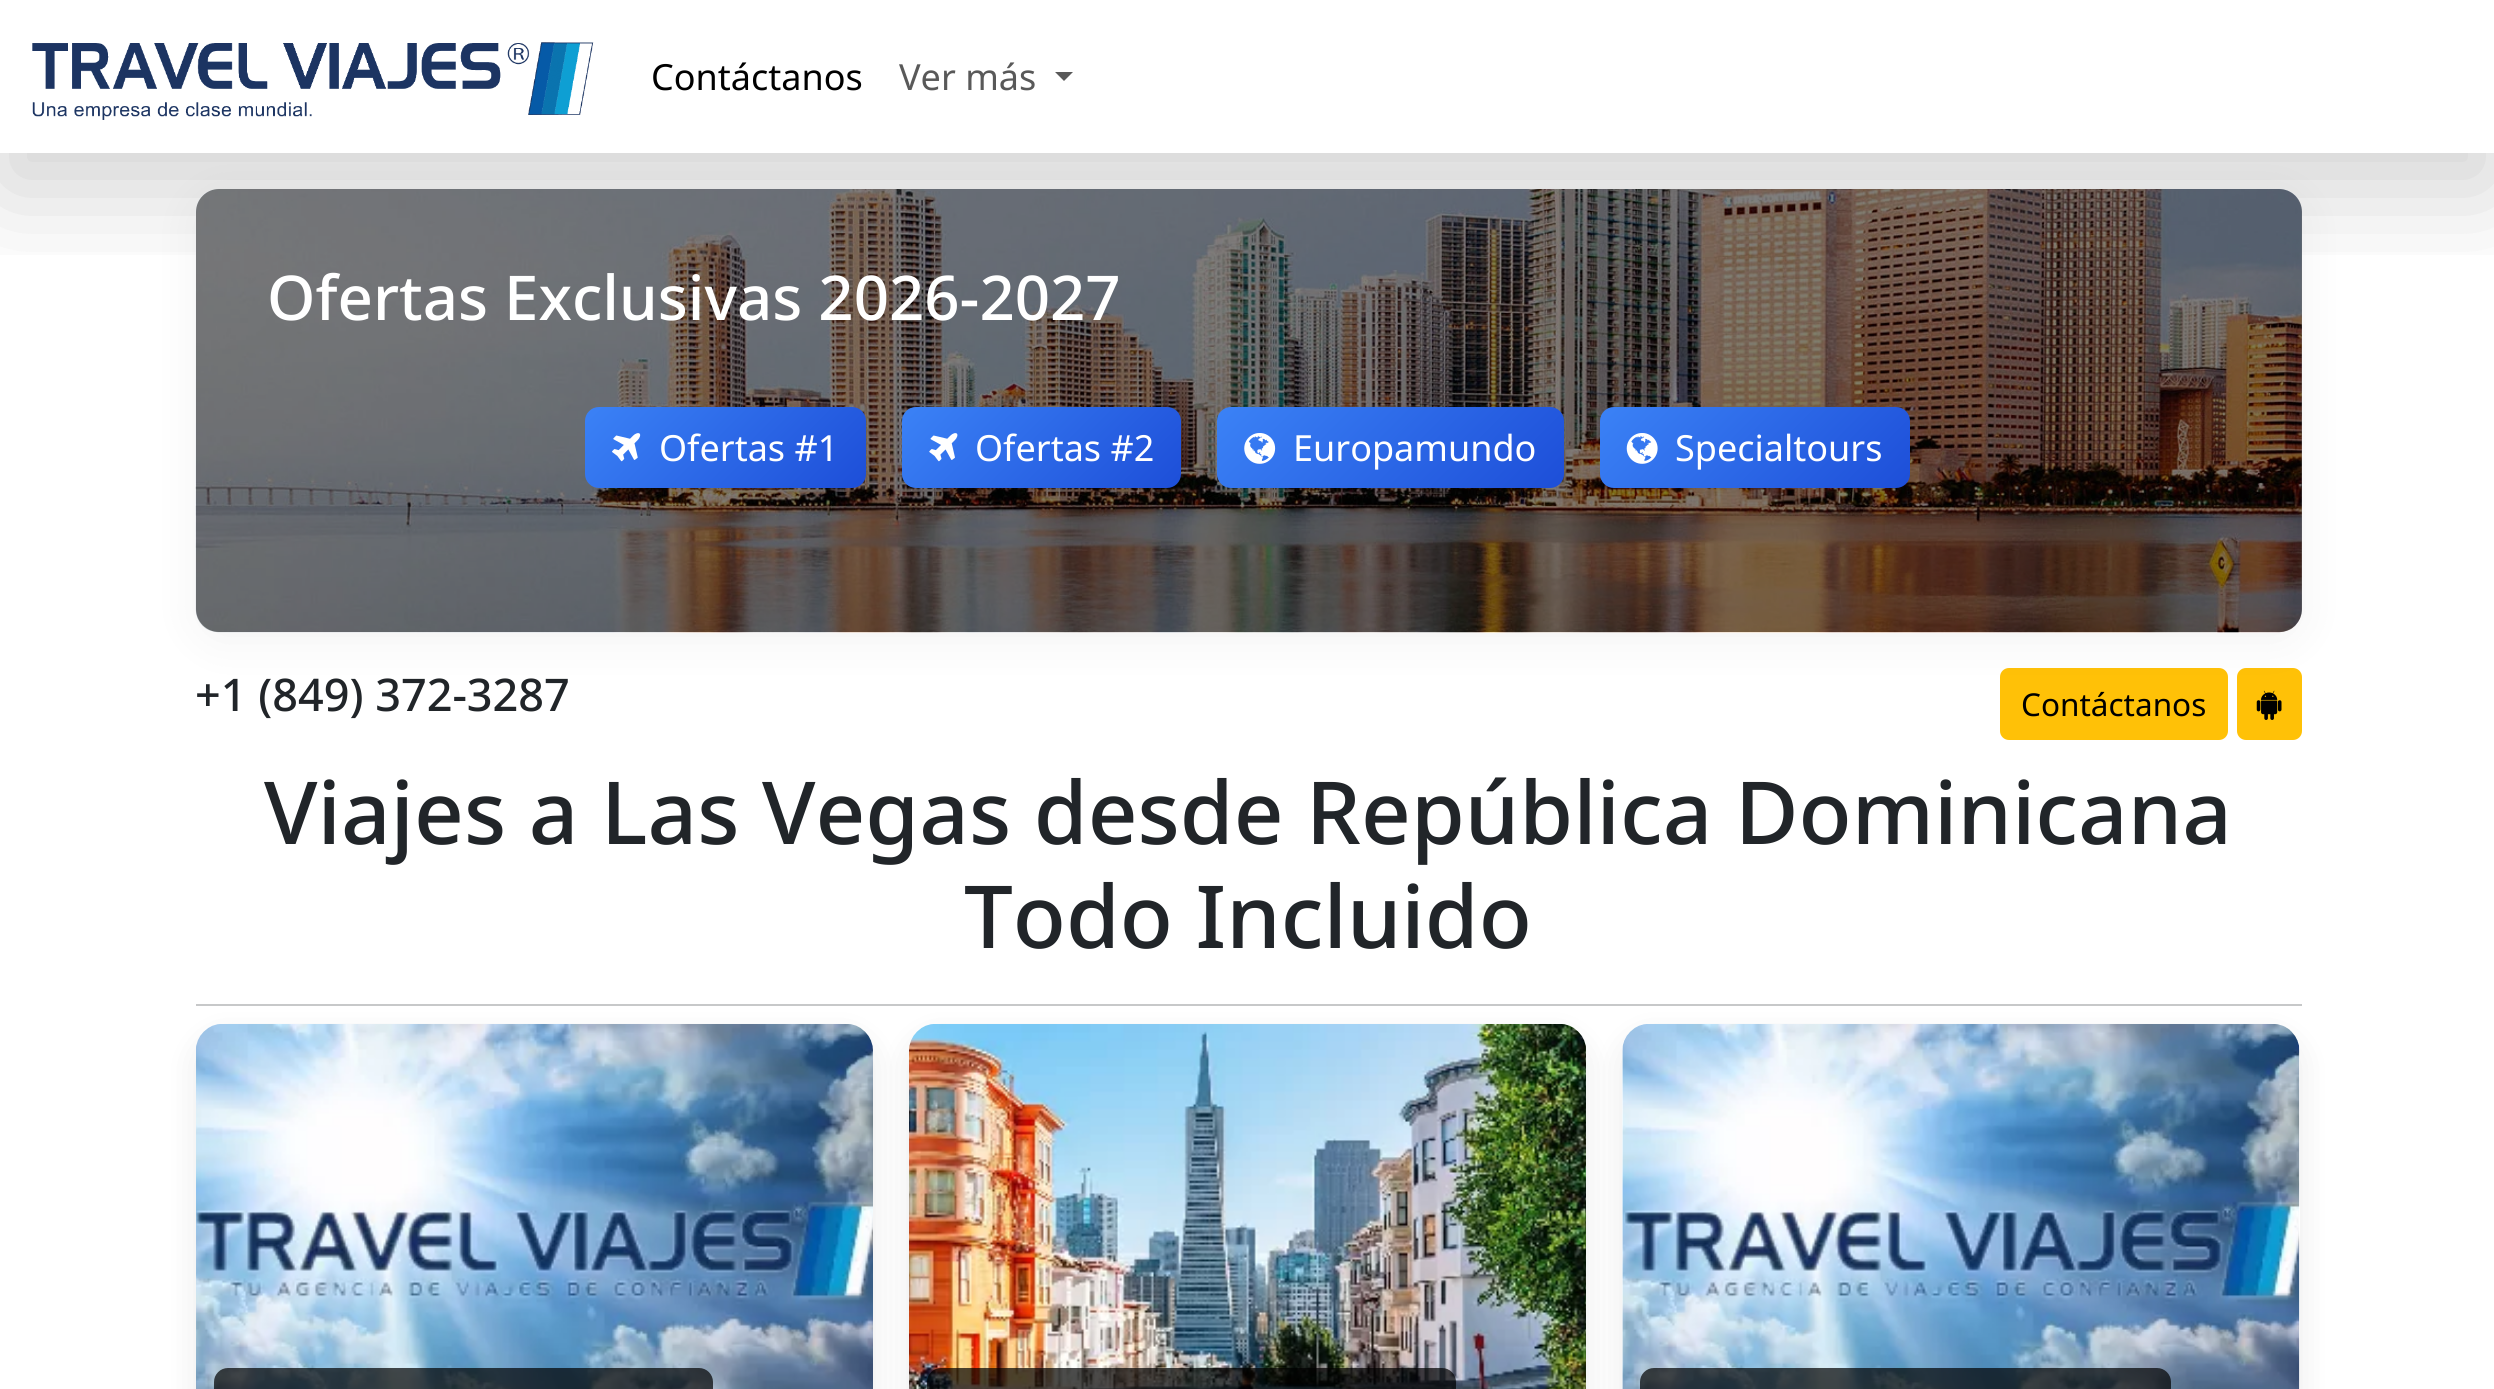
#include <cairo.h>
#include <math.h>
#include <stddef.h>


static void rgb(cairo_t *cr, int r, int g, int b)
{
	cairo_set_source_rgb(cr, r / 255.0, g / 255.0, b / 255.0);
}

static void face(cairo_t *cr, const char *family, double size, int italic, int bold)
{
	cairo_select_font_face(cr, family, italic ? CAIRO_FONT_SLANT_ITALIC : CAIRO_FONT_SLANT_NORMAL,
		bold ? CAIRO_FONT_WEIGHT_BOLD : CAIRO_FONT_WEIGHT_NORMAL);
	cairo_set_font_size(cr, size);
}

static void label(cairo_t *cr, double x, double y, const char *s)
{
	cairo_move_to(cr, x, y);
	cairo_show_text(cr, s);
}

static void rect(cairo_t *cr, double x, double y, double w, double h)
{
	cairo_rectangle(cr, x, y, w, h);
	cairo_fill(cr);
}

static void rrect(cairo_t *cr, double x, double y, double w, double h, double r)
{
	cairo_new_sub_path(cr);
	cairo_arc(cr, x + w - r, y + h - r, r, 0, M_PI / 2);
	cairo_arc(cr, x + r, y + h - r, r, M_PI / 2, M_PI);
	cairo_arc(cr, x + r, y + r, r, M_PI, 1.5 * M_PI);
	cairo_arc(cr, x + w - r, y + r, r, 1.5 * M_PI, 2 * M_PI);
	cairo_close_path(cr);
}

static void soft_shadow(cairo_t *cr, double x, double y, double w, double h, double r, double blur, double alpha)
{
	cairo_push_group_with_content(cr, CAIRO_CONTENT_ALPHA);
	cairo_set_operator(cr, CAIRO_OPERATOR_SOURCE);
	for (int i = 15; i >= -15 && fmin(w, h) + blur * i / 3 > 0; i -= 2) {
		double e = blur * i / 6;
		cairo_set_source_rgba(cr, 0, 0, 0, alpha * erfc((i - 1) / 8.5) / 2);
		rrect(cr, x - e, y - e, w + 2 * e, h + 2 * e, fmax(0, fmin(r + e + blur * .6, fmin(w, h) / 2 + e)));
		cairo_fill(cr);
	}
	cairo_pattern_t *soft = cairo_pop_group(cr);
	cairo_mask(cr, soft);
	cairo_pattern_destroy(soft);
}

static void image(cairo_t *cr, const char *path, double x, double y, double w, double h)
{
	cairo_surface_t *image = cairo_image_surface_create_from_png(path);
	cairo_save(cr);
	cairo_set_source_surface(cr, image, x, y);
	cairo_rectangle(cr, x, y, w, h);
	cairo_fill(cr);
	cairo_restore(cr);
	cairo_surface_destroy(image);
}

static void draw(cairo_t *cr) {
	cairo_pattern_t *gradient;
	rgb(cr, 255, 255, 255);
	cairo_paint(cr);
	cairo_save(cr);
	cairo_rectangle(cr, 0, 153, 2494, 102);
	cairo_clip(cr);
	rgb(cr, 0, 0, 0);
	soft_shadow(cr, 0, 36, 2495, 153, 0, 54, 0.18);
	cairo_restore(cr);
	image(cr, "image0.png", 32, 42, 562, 78);
	face(cr, "Noto Sans", 36, 0, 0);
	rgb(cr, 0, 0, 0);
	label(cr, 651, 90, "Contáctanos");
	rgb(cr, 89, 89, 89);
	label(cr, 899, 90, "Ver más");
	cairo_new_path(cr);
	cairo_move_to(cr, 1055, 72);
	cairo_line_to(cr, 1073, 72);
	cairo_line_to(cr, 1064, 81);
	cairo_close_path(cr);
	cairo_fill(cr);
	rgb(cr, 255, 193, 7);
	rrect(cr, 2001, 669, 226, 70, 8);
	cairo_fill_preserve(cr);
	cairo_stroke(cr);
	rrect(cr, 2238, 669, 63, 70, 8);
	cairo_fill_preserve(cr);
	cairo_stroke(cr);
	image(cr, "image6.png", 2256, 690, 26, 30);
	rgb(cr, 0, 0, 0);
	soft_shadow(cr, 196, 198, 2106, 443, 23, 22.5, 0.05);
	image(cr, "image1.png", 195, 189, 2107, 444);
	cairo_set_source_rgba(cr, 0, 0, 0, 0.5);
	rrect(cr, 196, 189, 2106, 443, 23);
	cairo_fill(cr);
	face(cr, "Noto Sans Medium", 61.75, 0, 0);
	rgb(cr, 255, 255, 255);
	label(cr, 267, 320, "Ofertas Exclusivas 2026-2027");
	gradient = cairo_pattern_create_linear(635, 357, 816, 538);
	cairo_pattern_add_color_stop_rgba(gradient, 0, 0.231, 0.51, 0.965, 1);
	cairo_pattern_add_color_stop_rgba(gradient, 1, 0.114, 0.306, 0.847, 1);
	cairo_set_source(cr, gradient);
	cairo_pattern_destroy(gradient);
	rrect(cr, 585, 407, 281, 81, 14);
	cairo_fill(cr);
	image(cr, "image2.png", 612, 433, 29, 29);
	face(cr, "Noto Sans", 36, 0, 0);
	rgb(cr, 255, 255, 255);
	label(cr, 659, 461, "Ofertas #1");
	gradient = cairo_pattern_create_linear(952, 358, 1132, 538);
	cairo_pattern_add_color_stop_rgba(gradient, 0, 0.231, 0.51, 0.965, 1);
	cairo_pattern_add_color_stop_rgba(gradient, 1, 0.114, 0.306, 0.847, 1);
	cairo_set_source(cr, gradient);
	cairo_pattern_destroy(gradient);
	rrect(cr, 902, 407, 279, 81, 14);
	cairo_fill(cr);
	image(cr, "image3.png", 929, 433, 29, 29);
	rgb(cr, 255, 255, 255);
	label(cr, 975, 461, "Ofertas #2");
	gradient = cairo_pattern_create_linear(1284, 341, 1497, 555);
	cairo_pattern_add_color_stop_rgba(gradient, 0, 0.231, 0.51, 0.965, 1);
	cairo_pattern_add_color_stop_rgba(gradient, 1, 0.114, 0.306, 0.847, 1);
	cairo_set_source(cr, gradient);
	cairo_pattern_destroy(gradient);
	rrect(cr, 1217, 407, 347, 81, 14);
	cairo_fill(cr);
	image(cr, "image4.png", 1244, 433, 32, 31);
	rgb(cr, 255, 255, 255);
	label(cr, 1293, 461, "Europamundo");
	gradient = cairo_pattern_create_linear(1657, 350, 1853, 546);
	cairo_pattern_add_color_stop_rgba(gradient, 0, 0.231, 0.51, 0.965, 1);
	cairo_pattern_add_color_stop_rgba(gradient, 1, 0.114, 0.306, 0.847, 1);
	cairo_set_source(cr, gradient);
	cairo_pattern_destroy(gradient);
	rrect(cr, 1600, 407, 310, 81, 14);
	cairo_fill(cr);
	image(cr, "image5.png", 1626, 433, 32, 31);
	rgb(cr, 255, 255, 255);
	label(cr, 1675, 461, "Specialtours");
	face(cr, "Noto Sans Medium", 45, 0, 0);
	rgb(cr, 33, 37, 41);
	label(cr, 195, 711, "+1 (849) 372-3287");
	face(cr, "Noto Sans", 31.5, 0, 0);
	rgb(cr, 0, 0, 0);
	label(cr, 2021, 716, "Contáctanos");
	face(cr, "Noto Sans Medium", 86.9, 0, 0);
	rgb(cr, 33, 37, 41);
	label(cr, 264, 844, "Viajes a Las Vegas desde República Dominicana");
	label(cr, 964, 948, "Todo Incluido");
	rgb(cr, 0, 0, 0);
	soft_shadow(cr, 196, 1037, 677, 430, 27, 17, 0.08);
	soft_shadow(cr, 909, 1037, 677, 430, 27, 17, 0.08);
	image(cr, "image7.png", 196, 1024, 677, 365);
	cairo_set_source_rgba(cr, 0, 0, 0, 0.7);
	rrect(cr, 214, 1368, 499, 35, 14);
	cairo_fill(cr);
	rgb(cr, 0, 0, 0);
	soft_shadow(cr, 1622, 1037, 678, 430, 27, 17, 0.08);
	image(cr, "image8.png", 909, 1024, 677, 365);
	cairo_set_source_rgba(cr, 0, 0, 0, 0.7);
	rrect(cr, 927, 1368, 529, 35, 14);
	cairo_fill(cr);
	rgb(cr, 255, 255, 255);
	rrect(cr, 1622, 1024, 678, 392, 27);
	cairo_fill(cr);
	image(cr, "image9.png", 1622, 1024, 678, 365);
	cairo_set_source_rgba(cr, 0, 0, 0, 0.7);
	rrect(cr, 1640, 1368, 531, 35, 14);
	cairo_fill(cr);
	rgb(cr, 199, 200, 201);
	rect(cr, 196, 1004, 2106, 2);
}

int main(void) {
	cairo_surface_t *surface = cairo_image_surface_create(CAIRO_FORMAT_RGB24, 2494, 1389);
	cairo_t *cr = cairo_create(surface);
	cairo_font_options_t *options = cairo_font_options_create();
	cairo_font_options_set_hint_metrics(options, CAIRO_HINT_METRICS_OFF);
	cairo_font_options_set_hint_style(options, CAIRO_HINT_STYLE_NONE);
	cairo_set_font_options(cr, options);
	cairo_set_miter_limit(cr, 4);
	draw(cr);
	cairo_surface_write_to_png(surface, "render.png");
	cairo_font_options_destroy(options);
	cairo_destroy(cr);
	cairo_surface_destroy(surface);
	return 0;
}
